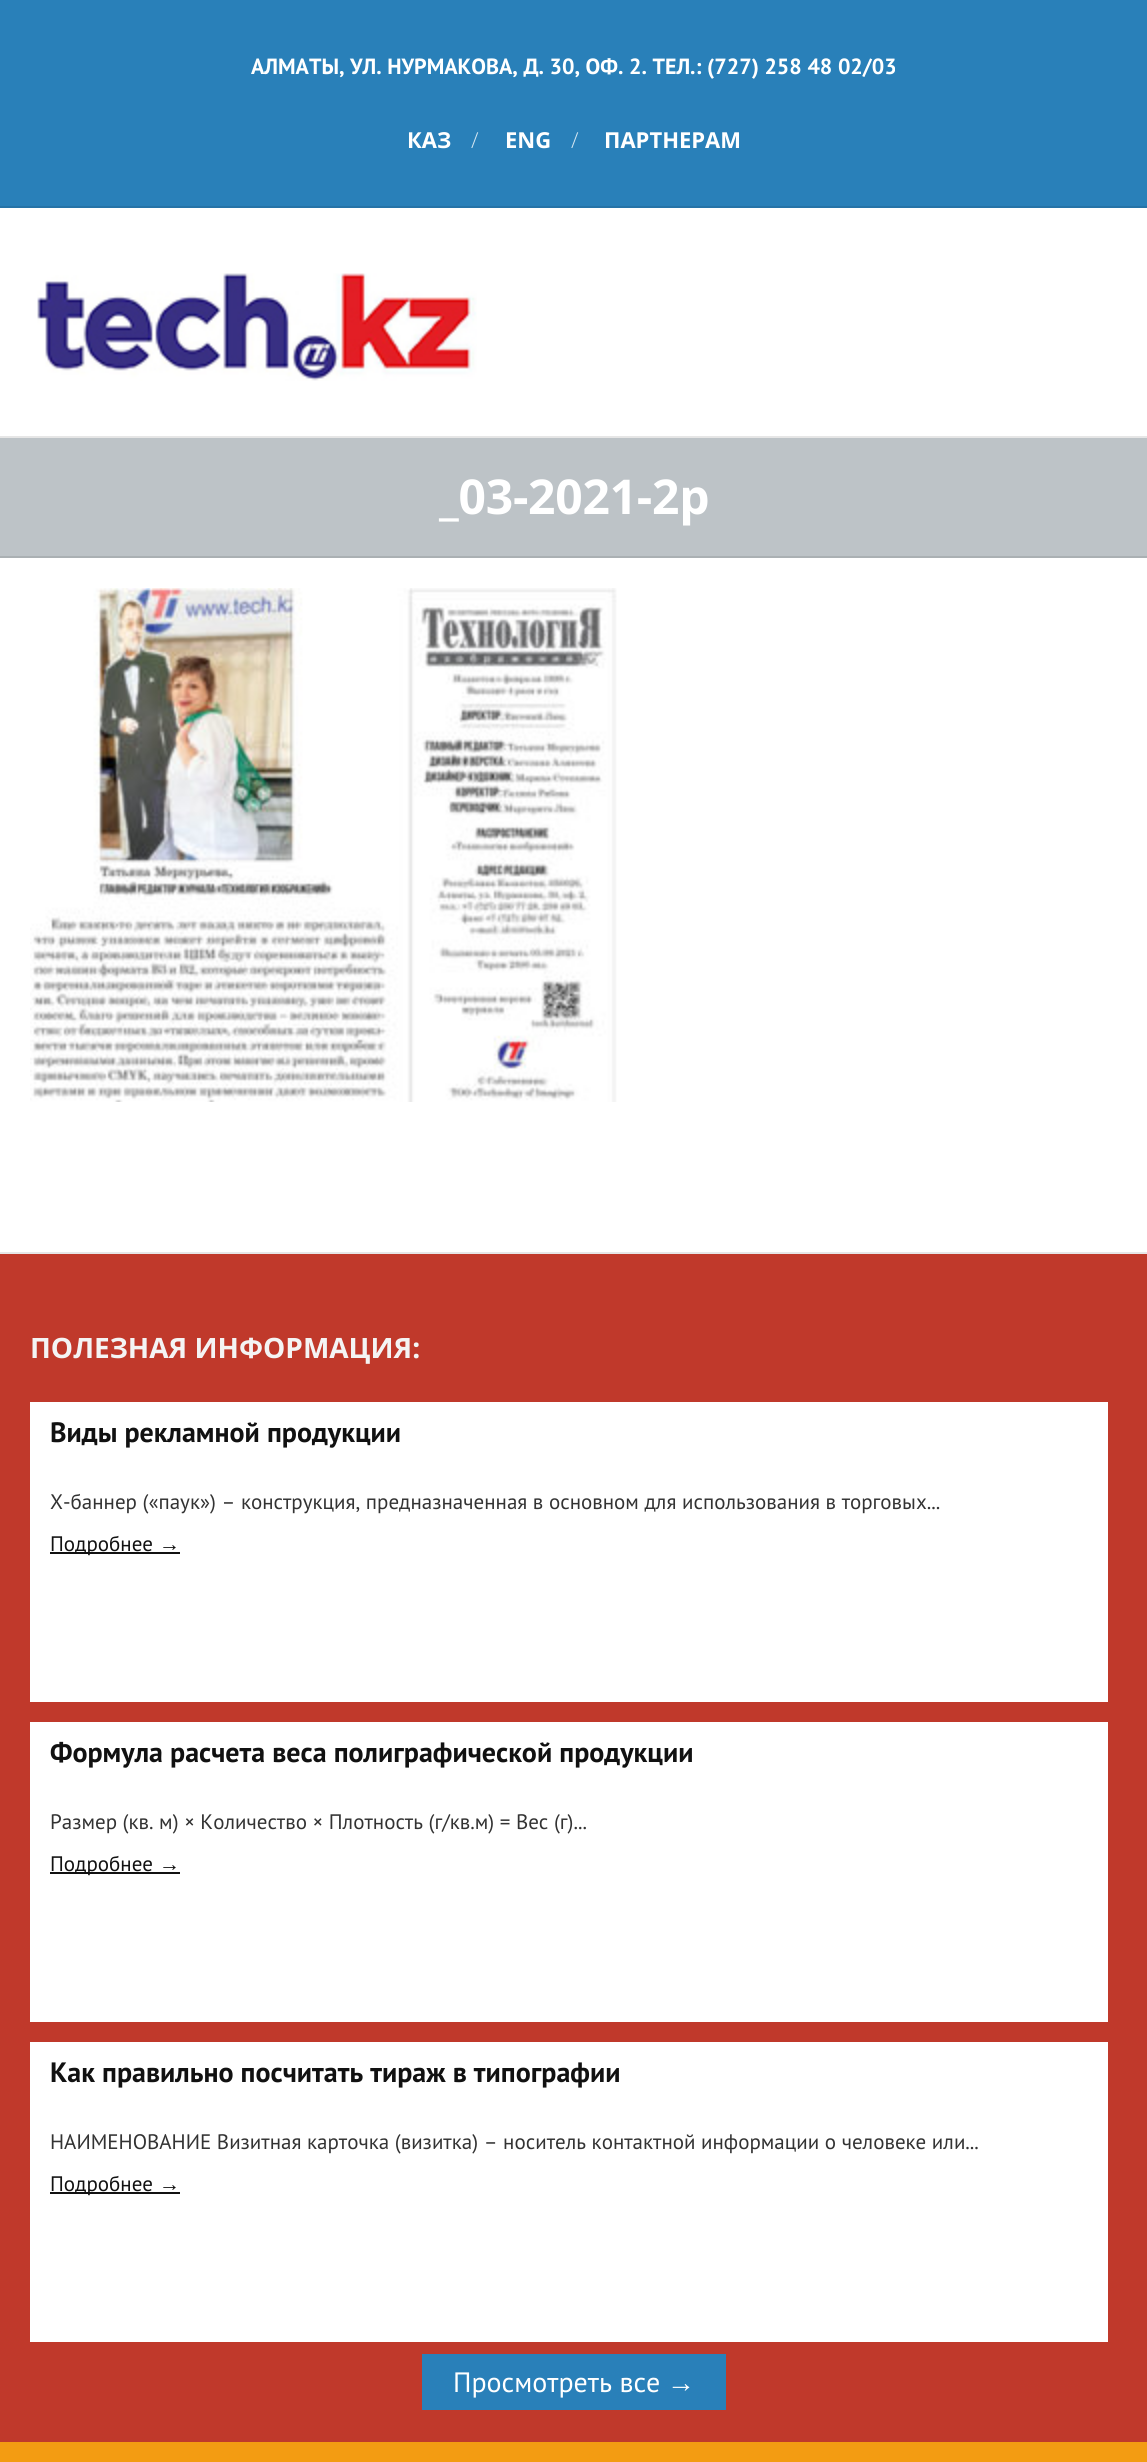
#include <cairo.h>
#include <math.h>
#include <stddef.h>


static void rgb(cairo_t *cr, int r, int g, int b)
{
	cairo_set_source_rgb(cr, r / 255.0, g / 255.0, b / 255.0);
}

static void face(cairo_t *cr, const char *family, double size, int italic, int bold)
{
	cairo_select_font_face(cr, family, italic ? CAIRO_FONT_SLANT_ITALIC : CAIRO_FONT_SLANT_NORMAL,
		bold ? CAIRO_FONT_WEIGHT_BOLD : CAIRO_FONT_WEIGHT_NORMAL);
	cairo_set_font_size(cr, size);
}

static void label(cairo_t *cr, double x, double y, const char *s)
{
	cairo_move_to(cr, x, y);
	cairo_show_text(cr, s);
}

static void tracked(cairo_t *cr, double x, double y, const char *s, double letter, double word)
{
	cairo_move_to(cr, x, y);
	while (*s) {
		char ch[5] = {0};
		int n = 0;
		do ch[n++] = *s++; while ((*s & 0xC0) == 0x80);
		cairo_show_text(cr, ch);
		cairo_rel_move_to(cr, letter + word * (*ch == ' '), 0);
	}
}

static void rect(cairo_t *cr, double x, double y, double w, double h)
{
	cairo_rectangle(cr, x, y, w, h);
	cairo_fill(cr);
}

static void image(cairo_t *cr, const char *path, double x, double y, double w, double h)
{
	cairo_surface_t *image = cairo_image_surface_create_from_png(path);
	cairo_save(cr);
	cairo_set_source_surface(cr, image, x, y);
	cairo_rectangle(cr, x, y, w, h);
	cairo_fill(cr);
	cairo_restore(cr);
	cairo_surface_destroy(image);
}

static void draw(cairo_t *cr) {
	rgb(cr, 255, 255, 255);
	cairo_paint(cr);
	rgb(cr, 41, 128, 185);
	rect(cr, 0, 0, 1147, 206);
	rgb(cr, 37, 115, 167);
	rect(cr, 0, 206, 1147, 2);
	face(cr, "PT Sans", 22, 0, 1);
	rgb(cr, 255, 255, 255);
	label(cr, 251, 74, "АЛМАТЫ, УЛ. НУРМАКОВА, Д. 30, ОФ. 2. ТЕЛ.: (727) 258 48 02/03");
	face(cr, "Open Sans", 22, 0, 1);
	label(cr, 407, 148, "КАЗ");
	face(cr, "Open Sans Light", 22, 0, 0);
	rgb(cr, 212, 230, 241);
	label(cr, 471, 148, "/");
	face(cr, "Open Sans", 22, 0, 1);
	rgb(cr, 255, 255, 255);
	label(cr, 505, 148, "ENG");
	face(cr, "Open Sans Light", 22, 0, 0);
	rgb(cr, 212, 230, 241);
	label(cr, 571, 148, "/");
	face(cr, "Open Sans", 22, 0, 1);
	rgb(cr, 255, 255, 255);
	label(cr, 604, 148, "ПАРТНЕРАМ");
	rgb(cr, 230, 230, 230);
	rect(cr, 0, 436, 1147, 2);
	image(cr, "image0.png", 37, 273, 440, 108);
	rgb(cr, 189, 195, 199);
	rect(cr, 0, 438, 1147, 118);
	rgb(cr, 170, 176, 179);
	rect(cr, 0, 556, 1147, 2);
	face(cr, "Open Sans", 48, 0, 1);
	rgb(cr, 255, 255, 255);
	tracked(cr, 439, 514, "_03-2021-2p", -0.25, 0);
	rgb(cr, 230, 230, 230);
	rect(cr, 0, 1252, 1147, 2);
	image(cr, "image1.png", 30, 588, 587, 514);
	rgb(cr, 192, 57, 43);
	rect(cr, 0, 1254, 1147, 1188);
	face(cr, "Open Sans", 28, 0, 1);
	rgb(cr, 244, 244, 244);
	label(cr, 30, 1358, "ПОЛЕЗНАЯ ИНФОРМАЦИЯ:");
	rgb(cr, 255, 255, 255);
	rect(cr, 30, 1402, 1078, 300);
	face(cr, "PT Sans", 28, 0, 1);
	rgb(cr, 17, 17, 17);
	label(cr, 50, 1442, "Виды рекламной продукции");
	face(cr, "PT Sans", 21, 0, 0);
	rgb(cr, 51, 51, 51);
	label(cr, 50, 1509, "Х-баннер («паук») – конструкция, предназначенная в основном для использования в торговых...");
	rgb(cr, 17, 17, 17);
	rect(cr, 50, 1552, 130, 2);
	label(cr, 50, 1551, "Подробнее");
	face(cr, "Liberation Serif", 21, 0, 0);
	label(cr, 159, 1551, "→");
	rgb(cr, 255, 255, 255);
	rect(cr, 30, 1722, 1078, 300);
	face(cr, "PT Sans", 28, 0, 1);
	rgb(cr, 17, 17, 17);
	label(cr, 50, 1762, "Формула расчета веса полиграфической продукции");
	face(cr, "PT Sans", 21, 0, 0);
	rgb(cr, 51, 51, 51);
	label(cr, 50, 1829, "Размер (кв. м) × Количество × Плотность (г/кв.м) = Вес (г)...");
	rgb(cr, 17, 17, 17);
	rect(cr, 50, 1872, 130, 2);
	label(cr, 50, 1871, "Подробнее");
	face(cr, "Liberation Serif", 21, 0, 0);
	label(cr, 159, 1871, "→");
	rgb(cr, 255, 255, 255);
	rect(cr, 30, 2042, 1078, 300);
	face(cr, "PT Sans", 28, 0, 1);
	rgb(cr, 17, 17, 17);
	label(cr, 50, 2082, "Как правильно посчитать тираж в типографии");
	face(cr, "PT Sans", 21, 0, 0);
	rgb(cr, 51, 51, 51);
	label(cr, 50, 2149, "НАИМЕНОВАНИЕ Визитная карточка (визитка) – носитель контактной информации о человеке или...");
	rgb(cr, 17, 17, 17);
	rect(cr, 50, 2192, 130, 2);
	label(cr, 50, 2191, "Подробнее");
	face(cr, "Liberation Serif", 21, 0, 0);
	label(cr, 159, 2191, "→");
	rgb(cr, 41, 128, 185);
	rect(cr, 422, 2354, 304, 56);
	face(cr, "PT Sans", 28, 0, 0);
	rgb(cr, 255, 255, 255);
	label(cr, 453, 2392, "Просмотреть все");
	face(cr, "Liberation Serif", 28, 0, 0);
	label(cr, 667, 2392, "→");
	rgb(cr, 243, 156, 18);
	rect(cr, 0, 2442, 1147, 20);
}

int main(void) {
	cairo_surface_t *surface = cairo_image_surface_create(CAIRO_FORMAT_RGB24, 1147, 2462);
	cairo_t *cr = cairo_create(surface);
	cairo_font_options_t *options = cairo_font_options_create();
	cairo_font_options_set_hint_metrics(options, CAIRO_HINT_METRICS_OFF);
	cairo_font_options_set_hint_style(options, CAIRO_HINT_STYLE_NONE);
	cairo_set_font_options(cr, options);
	cairo_set_miter_limit(cr, 4);
	draw(cr);
	cairo_surface_write_to_png(surface, "render.png");
	cairo_font_options_destroy(options);
	cairo_destroy(cr);
	cairo_surface_destroy(surface);
	return 0;
}
